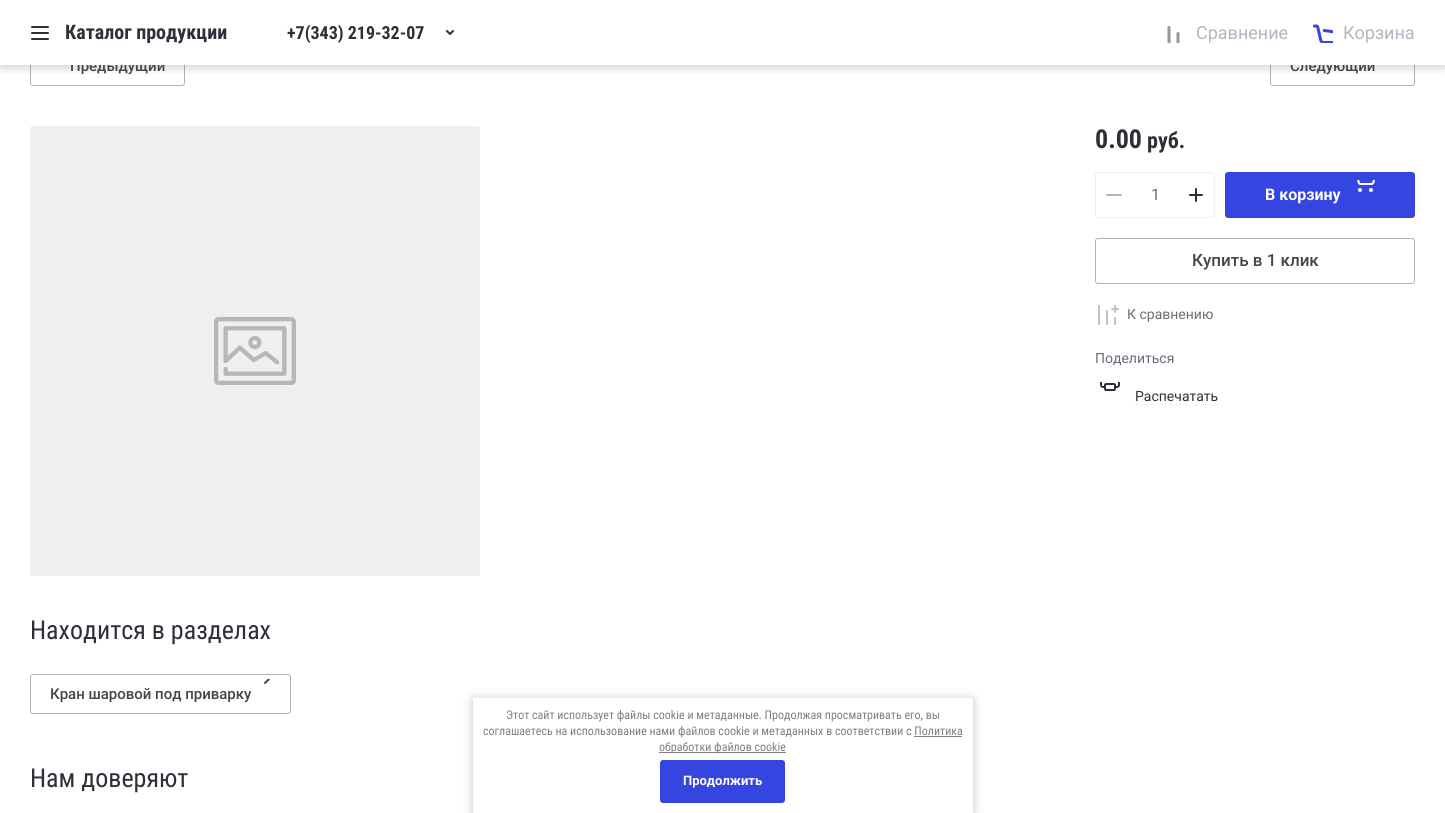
#include <cairo.h>
#include <math.h>
#include <stddef.h>


static void rgb(cairo_t *cr, int r, int g, int b)
{
	cairo_set_source_rgb(cr, r / 255.0, g / 255.0, b / 255.0);
}

static void face(cairo_t *cr, const char *family, double size, int italic, int bold)
{
	cairo_select_font_face(cr, family, italic ? CAIRO_FONT_SLANT_ITALIC : CAIRO_FONT_SLANT_NORMAL,
		bold ? CAIRO_FONT_WEIGHT_BOLD : CAIRO_FONT_WEIGHT_NORMAL);
	cairo_set_font_size(cr, size);
}

static void label(cairo_t *cr, double x, double y, const char *s)
{
	cairo_move_to(cr, x, y);
	cairo_show_text(cr, s);
}

static void rect(cairo_t *cr, double x, double y, double w, double h)
{
	cairo_rectangle(cr, x, y, w, h);
	cairo_fill(cr);
}

static void rrect(cairo_t *cr, double x, double y, double w, double h, double r)
{
	cairo_new_sub_path(cr);
	cairo_arc(cr, x + w - r, y + h - r, r, 0, M_PI / 2);
	cairo_arc(cr, x + r, y + h - r, r, M_PI / 2, M_PI);
	cairo_arc(cr, x + r, y + r, r, M_PI, 1.5 * M_PI);
	cairo_arc(cr, x + w - r, y + r, r, 1.5 * M_PI, 2 * M_PI);
	cairo_close_path(cr);
}

static void soft_shadow(cairo_t *cr, double x, double y, double w, double h, double r, double blur, double alpha)
{
	cairo_push_group_with_content(cr, CAIRO_CONTENT_ALPHA);
	cairo_set_operator(cr, CAIRO_OPERATOR_SOURCE);
	for (int i = 15; i >= -15 && fmin(w, h) + blur * i / 3 > 0; i -= 2) {
		double e = blur * i / 6;
		cairo_set_source_rgba(cr, 0, 0, 0, alpha * erfc((i - 1) / 8.5) / 2);
		rrect(cr, x - e, y - e, w + 2 * e, h + 2 * e, fmax(0, fmin(r + e + blur * .6, fmin(w, h) / 2 + e)));
		cairo_fill(cr);
	}
	cairo_pattern_t *soft = cairo_pop_group(cr);
	cairo_mask(cr, soft);
	cairo_pattern_destroy(soft);
}

static void image(cairo_t *cr, const char *path, double x, double y, double w, double h)
{
	cairo_surface_t *image = cairo_image_surface_create_from_png(path);
	cairo_save(cr);
	cairo_set_source_surface(cr, image, x, y);
	cairo_rectangle(cr, x, y, w, h);
	cairo_fill(cr);
	cairo_restore(cr);
	cairo_surface_destroy(image);
}

static void draw(cairo_t *cr) {
	rgb(cr, 255, 255, 255);
	cairo_paint(cr);
	rrect(cr, 30.5, 46.5, 154, 39, 2.5);
	rgb(cr, 181, 180, 181);
	cairo_set_line_width(cr, 1);
	cairo_stroke(cr);
	rrect(cr, 1270.5, 46.5, 144, 39, 2.5);
	cairo_stroke(cr);
	rgb(cr, 0, 0, 0);
	soft_shadow(cr, 0, 4, 1445, 65, 0, 4, 0.15);
	face(cr, "Roboto Medium", 15, 0, 0);
	rgb(cr, 69, 68, 71);
	label(cr, 70, 71, "Предыдущий");
	label(cr, 1290, 71, "Следующий");
	rgb(cr, 255, 255, 255);
	rect(cr, 0, 0, 1445, 65);
	image(cr, "image0.png", 31, 26, 18, 14);
	face(cr, "Roboto Condensed", 20, 0, 1);
	rgb(cr, 46, 47, 56);
	label(cr, 65, 39, "Каталог продукции");
	face(cr, "Roboto Condensed", 18, 0, 1);
	label(cr, 287, 39, "+7(343) 219-32-07");
	image(cr, "image1.png", 446, 30, 8, 5);
	image(cr, "image2.png", 1167, 26, 13, 17);
	face(cr, "Roboto", 18, 0, 0);
	rgb(cr, 179, 180, 191);
	label(cr, 1196, 39, "Сравнение");
	image(cr, "image3.png", 1313, 24, 20, 19);
	label(cr, 1343, 39, "Корзина");
	rgb(cr, 239, 239, 239);
	rrect(cr, 30, 126, 450, 450, 3);
	cairo_fill(cr);
	image(cr, "image4.png", 214, 317, 82, 68);
	face(cr, "Roboto Condensed", 26, 0, 1);
	rgb(cr, 46, 47, 56);
	label(cr, 1095, 148, "0.00");
	face(cr, "Roboto Condensed", 22, 0, 1);
	label(cr, 1147, 148, "руб.");
	rrect(cr, 1095.5, 172.5, 119, 45, 2.5);
	rgb(cr, 237, 237, 243);
	cairo_stroke(cr);
	image(cr, "image5.png", 1106, 194, 16, 2);
	face(cr, "Roboto", 16, 0, 0);
	rgb(cr, 109, 109, 116);
	label(cr, 1151, 200, "1");
	image(cr, "image6.png", 1189, 188, 14, 14);
	rgb(cr, 52, 69, 225);
	rrect(cr, 1225, 172, 190, 46, 3);
	cairo_fill(cr);
	image(cr, "image7.png", 1357, 180, 18, 12);
	face(cr, "Roboto", 16, 0, 1);
	rgb(cr, 255, 255, 255);
	label(cr, 1265, 200, "В корзину");
	rrect(cr, 1095.5, 238.5, 319, 45, 2.5);
	rgb(cr, 181, 180, 181);
	cairo_stroke(cr);
	face(cr, "Roboto Medium", 17, 0, 0);
	rgb(cr, 69, 68, 71);
	label(cr, 1192, 266, "Купить в 1 клик");
	image(cr, "image8.png", 1098, 305, 21, 20);
	face(cr, "Roboto", 14, 0, 0);
	rgb(cr, 109, 109, 116);
	label(cr, 1127, 319, "К сравнению");
	rgb(cr, 103, 105, 126);
	label(cr, 1095, 363, "Поделиться");
	image(cr, "image9.png", 1100, 382, 20, 9);
	rgb(cr, 46, 47, 56);
	label(cr, 1135, 401, "Распечатать");
	cairo_new_path(cr);
	cairo_move_to(cr, 1135, 404.5);
	cairo_line_to(cr, 1218, 404.5);
	rgb(cr, 237, 237, 243);
	cairo_set_dash(cr, (double[]){3, 2}, 2, 0);
	cairo_stroke(cr);
	face(cr, "Roboto Condensed", 26, 0, 0);
	rgb(cr, 46, 47, 56);
	label(cr, 30, 639, "Находится в разделах");
	rrect(cr, 30.5, 674.5, 260, 39, 2.5);
	rgb(cr, 181, 180, 181);
	cairo_set_dash(cr, NULL, 0, 0);
	cairo_stroke(cr);
	image(cr, "image10.png", 264, 679, 6, 5);
	face(cr, "Roboto Medium", 15, 0, 0);
	rgb(cr, 69, 68, 71);
	label(cr, 50, 699, "Кран шаровой под приварку");
	face(cr, "Roboto Condensed", 26, 0, 0);
	rgb(cr, 46, 47, 56);
	label(cr, 30, 787, "Нам доверяют");
	cairo_save(cr);
	cairo_set_fill_rule(cr, CAIRO_FILL_RULE_EVEN_ODD);
	cairo_new_path(cr);
	cairo_move_to(cr, 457, 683);
	cairo_line_to(cr, 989, 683);
	cairo_line_to(cr, 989, 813);
	cairo_line_to(cr, 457, 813);
	cairo_close_path(cr);
	cairo_move_to(cr, 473, 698);
	cairo_line_to(cr, 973, 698);
	cairo_line_to(cr, 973, 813);
	cairo_line_to(cr, 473, 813);
	cairo_close_path(cr);
	cairo_clip(cr);
	rgb(cr, 0, 0, 0);
	soft_shadow(cr, 473, 699, 500, 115, 0, 5, 0.23);
	cairo_restore(cr);
	face(cr, "Roboto Condensed", 12, 0, 0);
	rgb(cr, 128, 128, 128);
	label(cr, 506, 719, "Этот сайт использует файлы cookie и метаданные. Продолжая просматривать его, вы");
	label(cr, 483, 735, "соглашаетесь на использование нами файлов cookie и метаданных в соответствии с Политика");
	rect(cr, 659, 752, 127, 1);
	label(cr, 659, 751, "обработки файлов cookie");
	rect(cr, 914, 736, 48, 1);
	rgb(cr, 52, 69, 225);
	rrect(cr, 660, 760, 125, 43, 3);
	cairo_fill(cr);
	face(cr, "Roboto", 13, 0, 1);
	rgb(cr, 255, 255, 255);
	label(cr, 683, 785, "Продолжить");
}

int main(void) {
	cairo_surface_t *surface = cairo_image_surface_create(CAIRO_FORMAT_RGB24, 1445, 813);
	cairo_t *cr = cairo_create(surface);
	cairo_font_options_t *options = cairo_font_options_create();
	cairo_font_options_set_hint_metrics(options, CAIRO_HINT_METRICS_OFF);
	cairo_font_options_set_hint_style(options, CAIRO_HINT_STYLE_NONE);
	cairo_set_font_options(cr, options);
	cairo_set_miter_limit(cr, 4);
	draw(cr);
	cairo_surface_write_to_png(surface, "render.png");
	cairo_font_options_destroy(options);
	cairo_destroy(cr);
	cairo_surface_destroy(surface);
	return 0;
}
